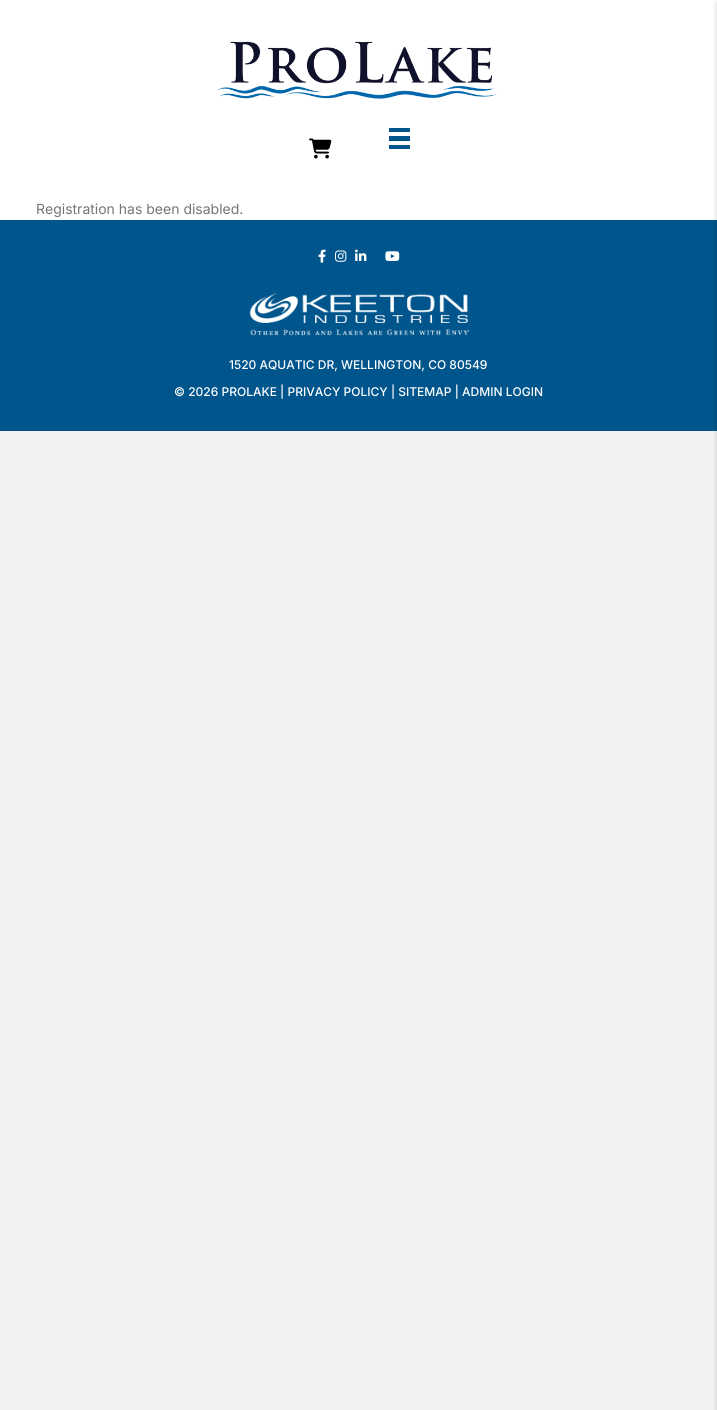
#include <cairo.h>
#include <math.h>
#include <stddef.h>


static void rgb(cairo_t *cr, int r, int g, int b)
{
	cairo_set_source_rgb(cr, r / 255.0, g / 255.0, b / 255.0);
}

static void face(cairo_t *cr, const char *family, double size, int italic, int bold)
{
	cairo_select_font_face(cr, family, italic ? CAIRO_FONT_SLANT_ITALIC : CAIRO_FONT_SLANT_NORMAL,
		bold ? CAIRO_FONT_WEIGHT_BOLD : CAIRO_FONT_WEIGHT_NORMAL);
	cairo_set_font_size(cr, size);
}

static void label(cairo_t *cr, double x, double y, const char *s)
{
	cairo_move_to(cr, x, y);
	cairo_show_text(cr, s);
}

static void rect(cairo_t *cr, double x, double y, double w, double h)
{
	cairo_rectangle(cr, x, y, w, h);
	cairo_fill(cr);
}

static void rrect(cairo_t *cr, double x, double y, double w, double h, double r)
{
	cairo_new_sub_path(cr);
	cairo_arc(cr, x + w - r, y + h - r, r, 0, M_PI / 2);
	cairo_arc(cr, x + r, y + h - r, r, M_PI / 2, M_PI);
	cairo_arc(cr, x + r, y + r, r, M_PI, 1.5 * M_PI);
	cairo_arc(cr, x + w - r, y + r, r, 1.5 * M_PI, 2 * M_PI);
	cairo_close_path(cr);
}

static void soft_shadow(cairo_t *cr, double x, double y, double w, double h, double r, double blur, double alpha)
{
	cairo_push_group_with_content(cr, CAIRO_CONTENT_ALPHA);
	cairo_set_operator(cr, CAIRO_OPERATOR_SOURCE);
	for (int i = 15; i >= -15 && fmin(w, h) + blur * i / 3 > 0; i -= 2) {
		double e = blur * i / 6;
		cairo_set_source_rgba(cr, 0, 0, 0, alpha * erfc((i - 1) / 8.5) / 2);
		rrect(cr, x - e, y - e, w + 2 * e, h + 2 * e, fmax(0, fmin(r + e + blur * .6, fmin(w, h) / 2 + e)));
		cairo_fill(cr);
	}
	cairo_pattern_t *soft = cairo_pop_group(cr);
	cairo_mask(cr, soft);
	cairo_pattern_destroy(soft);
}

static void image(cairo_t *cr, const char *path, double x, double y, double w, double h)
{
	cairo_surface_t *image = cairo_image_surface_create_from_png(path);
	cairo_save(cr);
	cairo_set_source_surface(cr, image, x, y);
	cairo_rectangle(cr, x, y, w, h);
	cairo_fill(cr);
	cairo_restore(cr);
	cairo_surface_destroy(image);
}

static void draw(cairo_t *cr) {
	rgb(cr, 242, 242, 242);
	cairo_paint(cr);
	rgb(cr, 255, 255, 255);
	rect(cr, 0, 0, 717, 220);
	rgb(cr, 0, 85, 140);
	rect(cr, 0, 220, 717, 211);
	rgb(cr, 0, 0, 0);
	soft_shadow(cr, 717, 3, 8, 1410, 0, 2.5, 0.1);
	image(cr, "image0.png", 218, 41, 279, 58);
	image(cr, "image1.png", 309, 138, 23, 21);
	rgb(cr, 0, 85, 140);
	rect(cr, 389, 128, 21, 4);
	rect(cr, 389, 136, 21, 5);
	rect(cr, 389, 145, 21, 4);
	face(cr, "Inter", 14, 0, 0);
	rgb(cr, 117, 117, 117);
	label(cr, 36, 214, "Registration has been disabled.");
	image(cr, "image2.png", 318, 249, 8, 14);
	image(cr, "image3.png", 335, 250, 12, 12);
	image(cr, "image4.png", 355, 249, 12, 12);
	image(cr, "image5.png", 385, 251, 15, 10);
	image(cr, "image6.png", 249, 293, 220, 43);
	face(cr, "Inter Medium", 12, 0, 0);
	rgb(cr, 255, 255, 255);
	label(cr, 229, 369, "1520 AQUATIC DR, WELLINGTON, CO 80549");
	label(cr, 174, 396, "© 2026 PROLAKE | PRIVACY POLICY | SITEMAP | ADMIN LOGIN");
	rgb(cr, 0, 0, 0);
	soft_shadow(cr, 717, 3, 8, 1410, 0, 2.5, 0.1);
}

int main(void) {
	cairo_surface_t *surface = cairo_image_surface_create(CAIRO_FORMAT_RGB24, 717, 1410);
	cairo_t *cr = cairo_create(surface);
	cairo_font_options_t *options = cairo_font_options_create();
	cairo_font_options_set_hint_metrics(options, CAIRO_HINT_METRICS_OFF);
	cairo_font_options_set_hint_style(options, CAIRO_HINT_STYLE_NONE);
	cairo_set_font_options(cr, options);
	cairo_set_miter_limit(cr, 4);
	draw(cr);
	cairo_surface_write_to_png(surface, "render.png");
	cairo_font_options_destroy(options);
	cairo_destroy(cr);
	cairo_surface_destroy(surface);
	return 0;
}
